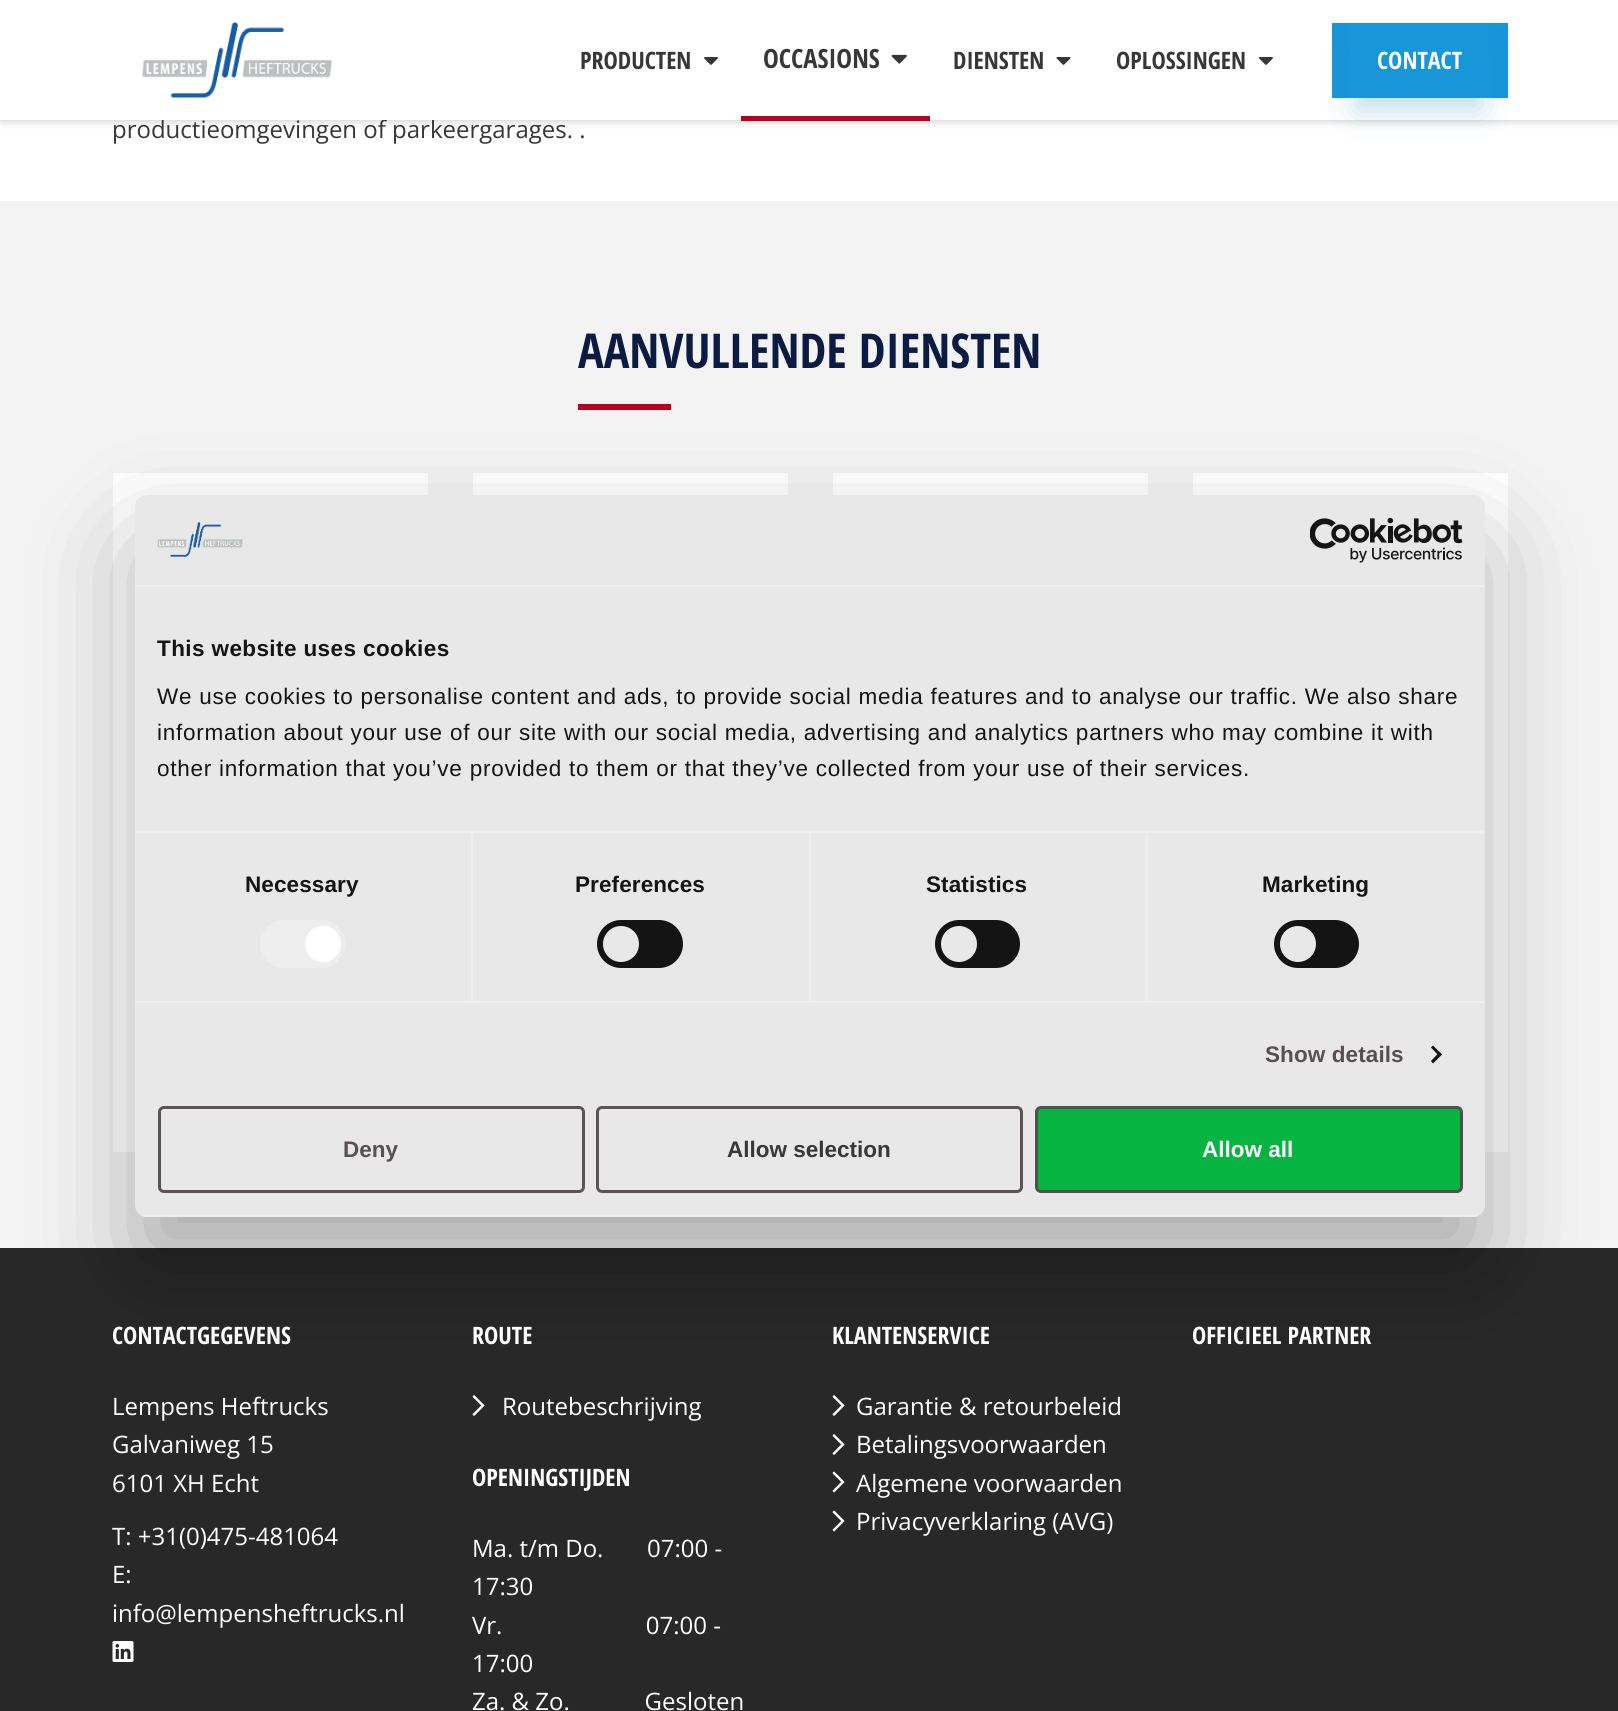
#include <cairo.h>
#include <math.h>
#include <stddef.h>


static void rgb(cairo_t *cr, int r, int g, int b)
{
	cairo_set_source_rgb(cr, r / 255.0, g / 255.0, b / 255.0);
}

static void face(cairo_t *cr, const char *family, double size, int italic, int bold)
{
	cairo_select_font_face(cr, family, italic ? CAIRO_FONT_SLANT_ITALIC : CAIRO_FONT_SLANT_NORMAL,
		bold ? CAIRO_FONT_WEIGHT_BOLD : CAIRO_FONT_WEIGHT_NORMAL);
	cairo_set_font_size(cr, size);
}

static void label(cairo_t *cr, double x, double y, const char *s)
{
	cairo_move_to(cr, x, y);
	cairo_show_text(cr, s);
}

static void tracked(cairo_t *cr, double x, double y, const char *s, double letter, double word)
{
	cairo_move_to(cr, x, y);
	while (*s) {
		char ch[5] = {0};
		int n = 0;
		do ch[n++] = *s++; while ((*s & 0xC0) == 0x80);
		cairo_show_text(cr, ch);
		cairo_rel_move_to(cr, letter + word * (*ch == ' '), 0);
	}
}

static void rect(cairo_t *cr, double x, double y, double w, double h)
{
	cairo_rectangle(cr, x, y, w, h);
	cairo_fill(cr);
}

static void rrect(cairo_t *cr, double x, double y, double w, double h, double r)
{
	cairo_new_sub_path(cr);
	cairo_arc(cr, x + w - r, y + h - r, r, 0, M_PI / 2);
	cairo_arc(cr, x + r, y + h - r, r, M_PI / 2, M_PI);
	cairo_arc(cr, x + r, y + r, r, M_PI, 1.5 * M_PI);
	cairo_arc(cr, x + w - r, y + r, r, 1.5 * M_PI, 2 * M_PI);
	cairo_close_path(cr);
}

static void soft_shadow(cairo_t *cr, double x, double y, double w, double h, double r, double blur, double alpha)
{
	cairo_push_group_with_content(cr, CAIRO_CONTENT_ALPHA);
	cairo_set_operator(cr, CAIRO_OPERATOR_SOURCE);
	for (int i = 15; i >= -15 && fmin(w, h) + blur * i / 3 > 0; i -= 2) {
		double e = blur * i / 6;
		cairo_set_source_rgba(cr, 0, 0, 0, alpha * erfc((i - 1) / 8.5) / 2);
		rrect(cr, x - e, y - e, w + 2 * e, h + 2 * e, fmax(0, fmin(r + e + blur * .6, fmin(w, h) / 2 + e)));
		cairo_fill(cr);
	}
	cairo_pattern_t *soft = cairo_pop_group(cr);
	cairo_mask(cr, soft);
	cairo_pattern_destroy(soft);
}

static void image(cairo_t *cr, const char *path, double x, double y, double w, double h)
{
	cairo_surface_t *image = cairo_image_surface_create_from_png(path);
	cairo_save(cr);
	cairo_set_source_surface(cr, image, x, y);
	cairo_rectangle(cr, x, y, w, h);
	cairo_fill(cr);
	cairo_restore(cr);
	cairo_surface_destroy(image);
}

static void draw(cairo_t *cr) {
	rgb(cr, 243, 243, 243);
	cairo_paint(cr);
	rgb(cr, 255, 255, 255);
	rect(cr, 0, 120, 1618, 81);
	rgb(cr, 0, 0, 0);
	soft_shadow(cr, 0, 0, 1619, 120, 0, 4.5, 0.25);
	face(cr, "Open Sans", 24, 0, 0);
	rgb(cr, 55, 55, 55);
	label(cr, 112, 138, "productieomgevingen of parkeergarages. .");
	rgb(cr, 255, 255, 255);
	rect(cr, 0, 0, 1618, 120);
	image(cr, "image0.png", 142, 22, 190, 76);
	face(cr, "Open Sans Condensed", 24, 0, 1);
	rgb(cr, 55, 55, 55);
	label(cr, 580, 69, "PRODUCTEN");
	image(cr, "image1.png", 704, 57, 14, 8);
	rgb(cr, 187, 0, 29);
	rect(cr, 741, 116, 189, 5);
	face(cr, "Open Sans Condensed", 26.5, 0, 1);
	rgb(cr, 55, 55, 55);
	label(cr, 763, 68, "OCCASIONS");
	image(cr, "image2.png", 891, 54, 16, 10);
	face(cr, "Open Sans Condensed", 24, 0, 1);
	label(cr, 953, 69, "DIENSTEN");
	image(cr, "image3.png", 1056, 57, 15, 8);
	label(cr, 1116, 69, "OPLOSSINGEN");
	image(cr, "image1.png", 1259, 57, 14, 8);
	rgb(cr, 24, 150, 218);
	rect(cr, 1332, 23, 176, 75);
	cairo_save(cr);
	cairo_set_fill_rule(cr, CAIRO_FILL_RULE_EVEN_ODD);
	cairo_new_path(cr);
	cairo_move_to(cr, 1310, 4);
	cairo_line_to(cr, 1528, 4);
	cairo_line_to(cr, 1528, 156);
	cairo_line_to(cr, 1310, 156);
	cairo_close_path(cr);
	cairo_move_to(cr, 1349, 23);
	cairo_line_to(cr, 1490, 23);
	cairo_line_to(cr, 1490, 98);
	cairo_line_to(cr, 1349, 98);
	cairo_close_path(cr);
	cairo_clip(cr);
	rgb(cr, 19, 118, 172);
	soft_shadow(cr, 1356, 50, 126, 60, 0, 15, 0.25);
	cairo_restore(cr);
	rgb(cr, 255, 255, 255);
	label(cr, 1377, 69, "CONTACT");
	face(cr, "Open Sans Condensed", 48, 0, 1);
	rgb(cr, 11, 27, 65);
	label(cr, 578, 368, "AANVULLENDE DIENSTEN");
	rgb(cr, 187, 0, 29);
	rect(cr, 578, 404, 93, 6);
	rgb(cr, 255, 255, 255);
	rect(cr, 113, 473, 315, 679);
	rect(cr, 473, 473, 315, 22);
	rect(cr, 833, 473, 315, 22);
	rect(cr, 1193, 473, 315, 679);
	rgb(cr, 40, 40, 40);
	rect(cr, 0, 1248, 1618, 463);
	image(cr, "image7.png", 472, 1395, 13, 21);
	image(cr, "image7.png", 832, 1395, 13, 21);
	rgb(cr, 0, 0, 0);
	soft_shadow(cr, 135, 543, 1350, 722, 12, 51, 0.3);
	rgb(cr, 233, 232, 232);
	rrect(cr, 135, 495, 1350, 722, 12);
	cairo_fill(cr);
	rgb(cr, 238, 238, 238);
	rect(cr, 135, 585, 1350, 2);
	image(cr, "image4.png", 157, 522, 86, 35);
	image(cr, "image5.png", 1310, 518, 153, 45);
	rect(cr, 135, 831, 1350, 2);
	face(cr, "Liberation Sans", 22.5, 0, 1);
	rgb(cr, 20, 20, 20);
	tracked(cr, 157, 656, "This website uses cookies", 0.4, 0);
	face(cr, "Liberation Sans", 22.5, 0, 0);
	tracked(cr, 157, 704, "We use cookies to personalise content and ads, to provide social media features and to analyse our traffic. We also share", 0.75, 0);
	tracked(cr, 157, 740, "information about your use of our site with our social media, advertising and analytics partners who may combine it with", 0.75, 0);
	tracked(cr, 157, 776, "other information that you’ve provided to them or that they’ve collected from your use of their services.", 0.75, 0);
	rgb(cr, 238, 238, 238);
	rect(cr, 135, 1001, 1350, 2);
	rect(cr, 471, 833, 2, 168);
	face(cr, "Liberation Sans", 22.5, 0, 1);
	rgb(cr, 20, 20, 20);
	tracked(cr, 245, 892, "Necessary", 0.1, 0);
	rgb(cr, 238, 238, 238);
	rrect(cr, 260, 920, 85, 48, 24);
	cairo_fill(cr);
	rgb(cr, 255, 255, 255);
	cairo_arc(cr, 323, 944, 18, 0, 2 * M_PI);
	cairo_fill(cr);
	rgb(cr, 238, 238, 238);
	rect(cr, 809, 833, 2, 168);
	rgb(cr, 20, 20, 20);
	tracked(cr, 575, 892, "Preferences", 0.1, 0);
	rrect(cr, 597, 920, 86, 48, 24);
	cairo_fill(cr);
	rgb(cr, 233, 232, 232);
	cairo_arc(cr, 621, 944, 18, 0, 2 * M_PI);
	cairo_fill(cr);
	rgb(cr, 238, 238, 238);
	rect(cr, 1146, 833, 2, 168);
	rgb(cr, 20, 20, 20);
	tracked(cr, 926, 892, "Statistics", 0.1, 0);
	rrect(cr, 935, 920, 85, 48, 24);
	cairo_fill(cr);
	rgb(cr, 233, 232, 232);
	cairo_arc(cr, 959, 944, 18, 0, 2 * M_PI);
	cairo_fill(cr);
	rgb(cr, 20, 20, 20);
	tracked(cr, 1262, 892, "Marketing", 0.1, 0);
	rrect(cr, 1274, 920, 85, 48, 24);
	cairo_fill(cr);
	rgb(cr, 233, 232, 232);
	cairo_arc(cr, 1298, 944, 18, 0, 2 * M_PI);
	cairo_fill(cr);
	rgb(cr, 88, 80, 80);
	tracked(cr, 1265, 1062, "Show details", 0.1, 0);
	rgb(cr, 20, 20, 20);
	cairo_new_path(cr);
	cairo_move_to(cr, 1433, 1045.5);
	cairo_line_to(cr, 1442, 1054.5);
	cairo_line_to(cr, 1439.5, 1056.5);
	cairo_line_to(cr, 1431, 1047.5);
	cairo_close_path(cr);
	cairo_fill(cr);
	cairo_new_path(cr);
	cairo_move_to(cr, 1439.5, 1052);
	cairo_line_to(cr, 1442, 1054.5);
	cairo_line_to(cr, 1433, 1063.5);
	cairo_line_to(cr, 1431, 1061);
	cairo_close_path(cr);
	cairo_fill(cr);
	cairo_save(cr);
	rrect(cr, 135, 495, 1350, 722, 12);
	cairo_clip(cr);
	rgb(cr, 238, 238, 238);
	rect(cr, 135, 1215, 1350, 2);
	cairo_restore(cr);
	rrect(cr, 159.5, 1107.5, 424, 84, 4.5);
	rgb(cr, 90, 84, 84);
	cairo_set_line_width(cr, 3);
	cairo_stroke(cr);
	rgb(cr, 88, 80, 80);
	label(cr, 343, 1157, "Deny");
	rrect(cr, 597.5, 1107.5, 424, 84, 4.5);
	rgb(cr, 90, 84, 84);
	cairo_stroke(cr);
	rgb(cr, 55, 55, 55);
	label(cr, 727, 1157, "Allow selection");
	rgb(cr, 6, 180, 65);
	rrect(cr, 1036.5, 1107.5, 425, 84, 4.5);
	cairo_fill_preserve(cr);
	rgb(cr, 84, 79, 79);
	cairo_stroke(cr);
	rgb(cr, 255, 255, 255);
	label(cr, 1202, 1157, "Allow all");
	face(cr, "Open Sans Condensed", 24, 0, 1);
	label(cr, 112, 1344, "CONTACTGEGEVENS");
	face(cr, "Open Sans", 24, 0, 0);
	label(cr, 112, 1415, "Lempens Heftrucks");
	label(cr, 112, 1453, "Galvaniweg 15");
	label(cr, 112, 1492, "6101 XH Echt");
	label(cr, 112, 1545, "T: +31(0)475-481064");
	label(cr, 112, 1583, "E:");
	label(cr, 112, 1622, "info@lempensheftrucks.nl");
	image(cr, "image6.png", 112, 1641, 22, 21);
	face(cr, "Open Sans Condensed", 24, 0, 1);
	label(cr, 472, 1344, "ROUTE");
	face(cr, "Open Sans", 24, 0, 0);
	label(cr, 502, 1415, "Routebeschrijving");
	face(cr, "Open Sans Condensed", 24, 0, 1);
	label(cr, 472, 1486, "OPENINGSTIJDEN");
	face(cr, "Open Sans", 24, 0, 0);
	label(cr, 472, 1557, "Ma. t/m Do.       07:00 -");
	label(cr, 472, 1595, "17:30");
	label(cr, 472, 1634, "Vr.                       07:00 -");
	label(cr, 472, 1672, "17:00");
	label(cr, 472, 1710, "Za. & Zo.            Gesloten");
	face(cr, "Open Sans Condensed", 24, 0, 1);
	label(cr, 832, 1344, "KLANTENSERVICE");
	face(cr, "Open Sans", 24, 0, 0);
	label(cr, 856, 1415, "Garantie & retourbeleid");
	image(cr, "image7.png", 832, 1434, 13, 21);
	label(cr, 856, 1453, "Betalingsvoorwaarden");
	image(cr, "image8.png", 832, 1471, 13, 22);
	label(cr, 856, 1492, "Algemene voorwaarden");
	image(cr, "image8.png", 832, 1510, 13, 22);
	label(cr, 856, 1530, "Privacyverklaring (AVG)");
	face(cr, "Open Sans Condensed", 24, 0, 1);
	label(cr, 1192, 1344, "OFFICIEEL PARTNER");
}

int main(void) {
	cairo_surface_t *surface = cairo_image_surface_create(CAIRO_FORMAT_RGB24, 1618, 1711);
	cairo_t *cr = cairo_create(surface);
	cairo_font_options_t *options = cairo_font_options_create();
	cairo_font_options_set_hint_metrics(options, CAIRO_HINT_METRICS_OFF);
	cairo_font_options_set_hint_style(options, CAIRO_HINT_STYLE_NONE);
	cairo_set_font_options(cr, options);
	cairo_set_miter_limit(cr, 4);
	draw(cr);
	cairo_surface_write_to_png(surface, "render.png");
	cairo_font_options_destroy(options);
	cairo_destroy(cr);
	cairo_surface_destroy(surface);
	return 0;
}
